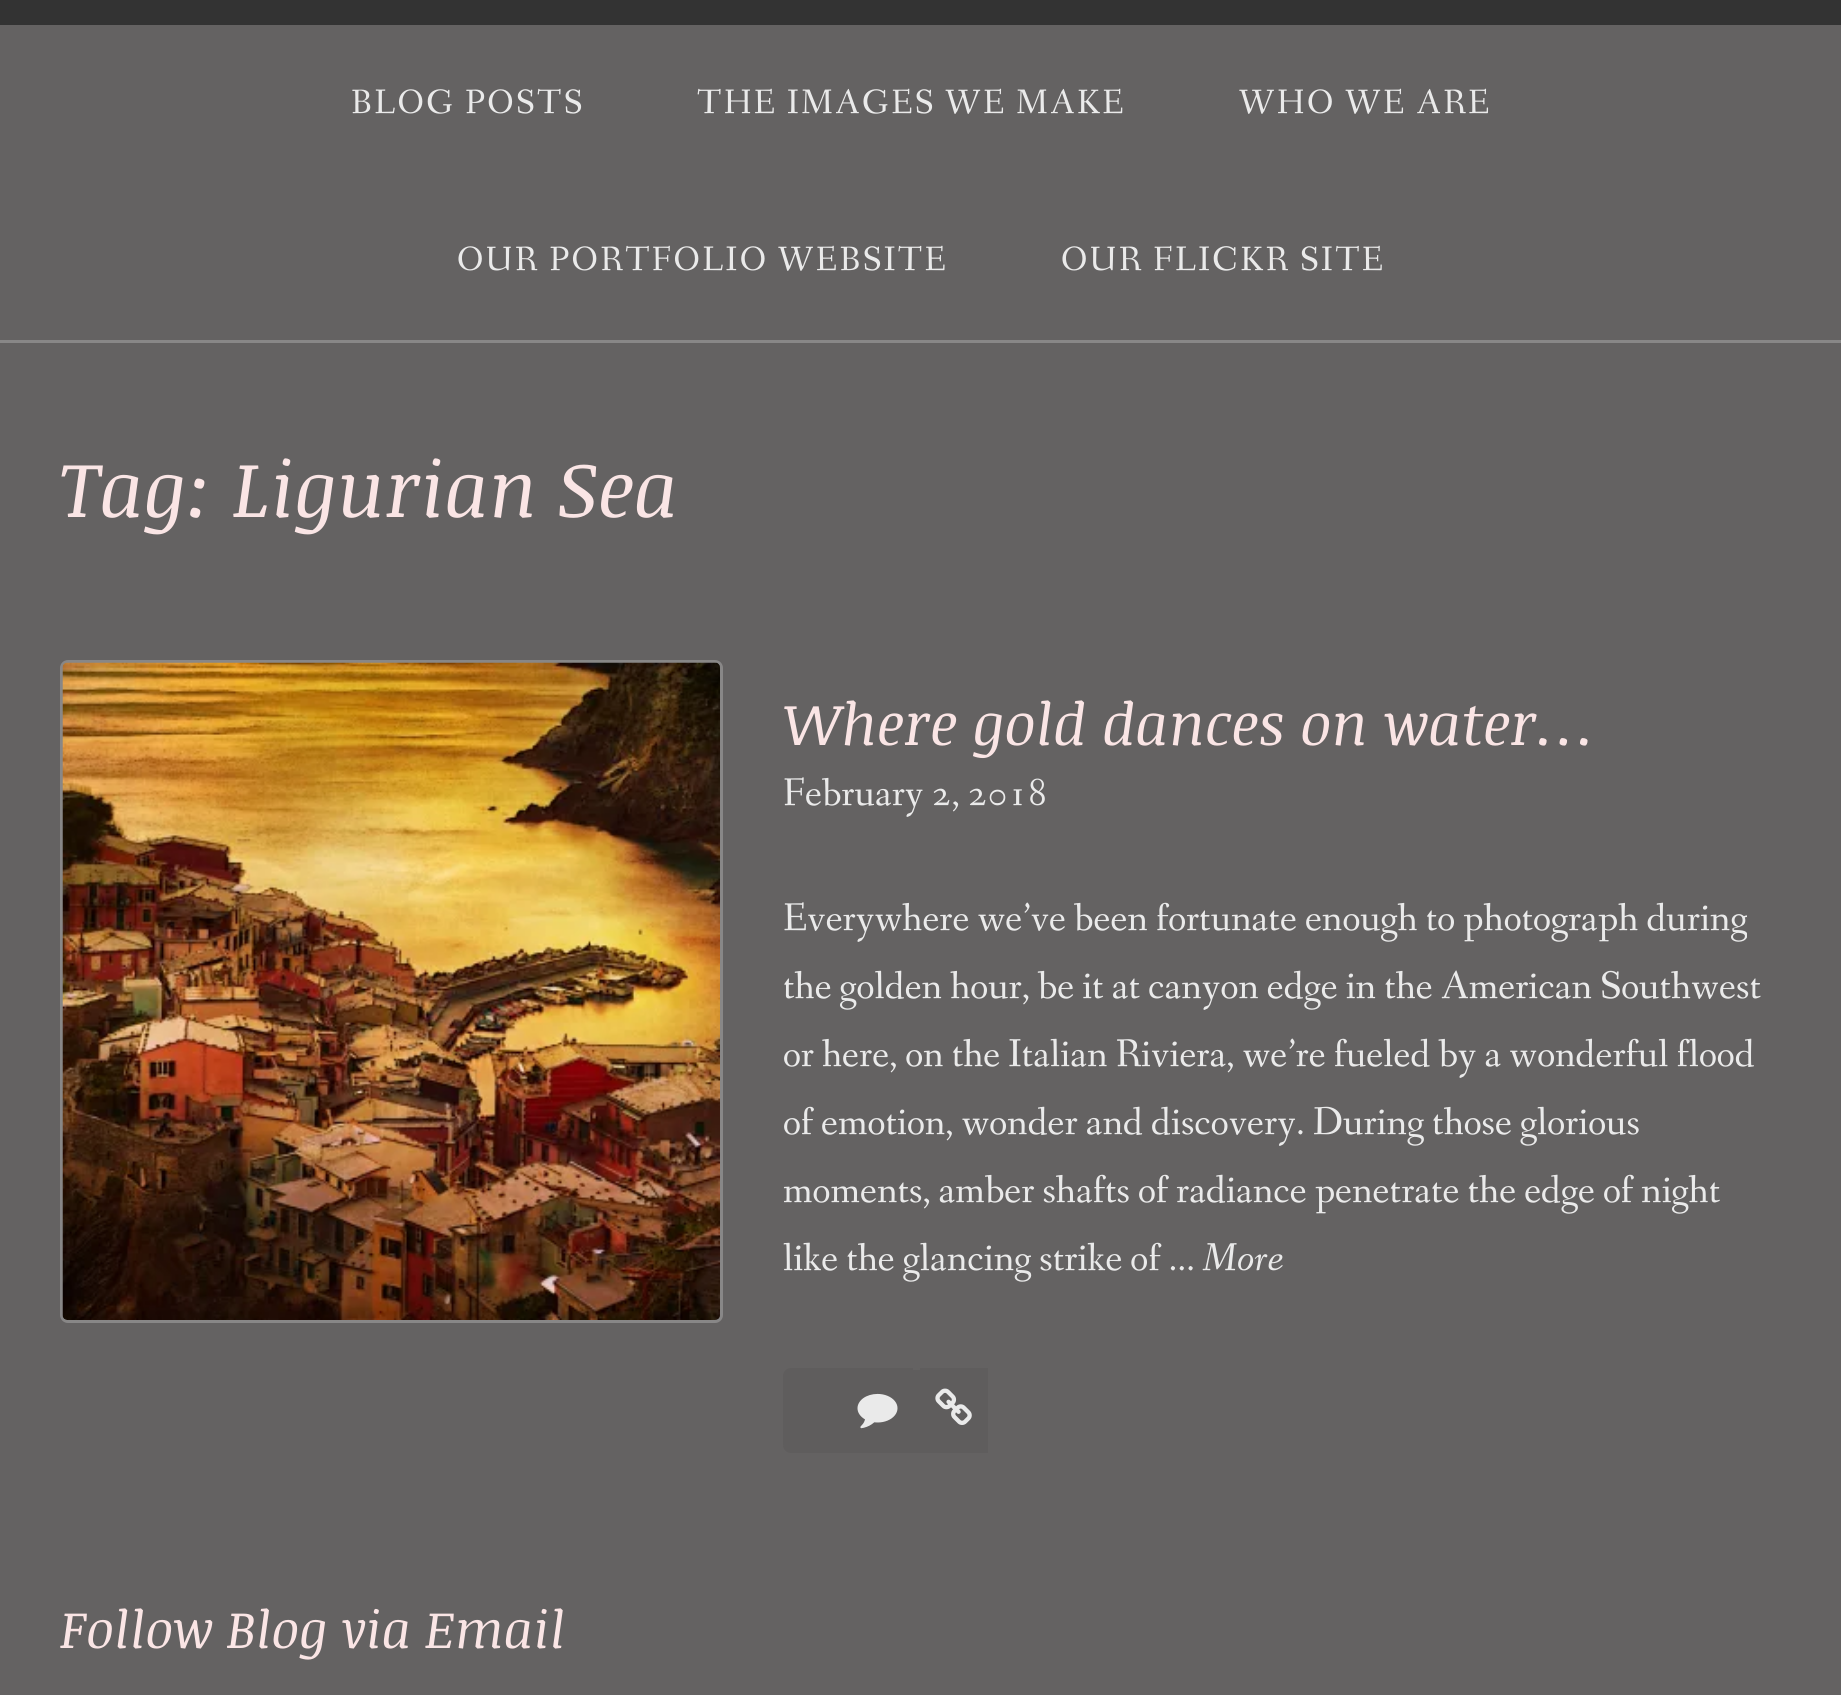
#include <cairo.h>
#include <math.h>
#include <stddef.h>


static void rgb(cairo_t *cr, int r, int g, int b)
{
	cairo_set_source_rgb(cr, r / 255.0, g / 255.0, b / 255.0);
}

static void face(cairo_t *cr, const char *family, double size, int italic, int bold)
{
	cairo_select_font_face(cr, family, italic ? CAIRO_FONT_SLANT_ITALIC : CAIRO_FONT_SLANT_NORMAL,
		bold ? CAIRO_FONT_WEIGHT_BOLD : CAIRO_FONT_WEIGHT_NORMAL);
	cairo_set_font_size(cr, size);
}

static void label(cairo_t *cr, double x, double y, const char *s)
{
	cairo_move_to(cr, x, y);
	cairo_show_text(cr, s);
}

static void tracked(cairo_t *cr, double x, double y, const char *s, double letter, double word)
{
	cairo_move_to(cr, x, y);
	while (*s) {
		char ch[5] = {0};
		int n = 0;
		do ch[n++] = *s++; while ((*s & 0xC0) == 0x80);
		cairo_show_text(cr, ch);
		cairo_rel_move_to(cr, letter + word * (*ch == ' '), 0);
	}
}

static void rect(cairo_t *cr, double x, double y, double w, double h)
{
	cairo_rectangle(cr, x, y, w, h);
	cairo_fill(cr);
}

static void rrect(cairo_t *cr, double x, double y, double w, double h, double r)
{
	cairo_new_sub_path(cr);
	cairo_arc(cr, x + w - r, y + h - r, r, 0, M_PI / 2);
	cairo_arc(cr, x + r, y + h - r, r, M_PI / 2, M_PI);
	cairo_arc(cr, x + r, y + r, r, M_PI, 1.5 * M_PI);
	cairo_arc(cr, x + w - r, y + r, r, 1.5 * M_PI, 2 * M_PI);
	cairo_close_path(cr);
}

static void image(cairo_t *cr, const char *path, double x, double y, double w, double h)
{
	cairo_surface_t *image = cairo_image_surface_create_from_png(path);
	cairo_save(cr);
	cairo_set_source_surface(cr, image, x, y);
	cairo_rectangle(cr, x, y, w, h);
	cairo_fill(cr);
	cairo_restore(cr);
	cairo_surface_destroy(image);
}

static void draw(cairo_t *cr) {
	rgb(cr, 100, 98, 98);
	cairo_paint(cr);
	rgb(cr, 51, 51, 51);
	rect(cr, 0, 0, 1841, 25);
	rgb(cr, 136, 135, 135);
	rect(cr, 0, 340, 1841, 3);
	face(cr, "Fanwood Text", 35, 0, 0);
	rgb(cr, 234, 234, 234);
	tracked(cr, 351, 113, "BLOG POSTS", 2.5, 0);
	tracked(cr, 697, 113, "THE IMAGES WE MAKE", 2.5, 0);
	tracked(cr, 1239, 113, "WHO WE ARE", 2.5, 0);
	tracked(cr, 457, 270, "OUR PORTFOLIO WEBSITE", 2.5, 0);
	tracked(cr, 1061, 270, "OUR FLICKR SITE", 2.5, 0);
	face(cr, "Noticia Text", 78, 1, 0);
	rgb(cr, 250, 229, 229);
	label(cr, 60, 517, "Tag: Ligurian Sea");
	rrect(cr, 61.5, 661.5, 660, 660, 6.5);
	cairo_set_source_rgba(cr, 0.867, 0.867, 0.867, 0.3);
	cairo_set_line_width(cr, 3);
	cairo_stroke(cr);
	image(cr, "image0.png", 62, 662, 658, 658);
	face(cr, "Noticia Text", 58.5, 1, 0);
	rgb(cr, 250, 229, 229);
	label(cr, 783, 745, "Where gold dances on water…");
	face(cr, "Fanwood Text", 40, 0, 0);
	rgb(cr, 234, 234, 234);
	label(cr, 783, 805, "February 2, 2018");
	label(cr, 783, 930, "Everywhere we’ve been fortunate enough to photograph during");
	label(cr, 783, 998, "the golden hour, be it at canyon edge in the American Southwest");
	label(cr, 783, 1066, "or here, on the Italian Riviera, we’re fueled by a wonderful flood");
	label(cr, 783, 1134, "of emotion, wonder and discovery. During those glorious");
	label(cr, 783, 1202, "moments, amber shafts of radiance penetrate the edge of night");
	label(cr, 783, 1270, "like the glancing strike of …");
	face(cr, "Fanwood Text", 40, 1, 0);
	label(cr, 1202, 1270, "More");
	rgb(cr, 95, 93, 93);
	cairo_new_path(cr);
	cairo_move_to(cr, 791, 1368);
	cairo_line_to(cr, 913, 1368);
	cairo_line_to(cr, 913, 1453);
	cairo_line_to(cr, 791, 1453);
	cairo_curve_to(cr, 786.5, 1453, 783, 1449.5, 783, 1445);
	cairo_line_to(cr, 783, 1376);
	cairo_curve_to(cr, 783, 1371.5, 786.5, 1368, 791, 1368);
	cairo_close_path(cr);
	cairo_fill(cr);
	rect(cr, 913, 1370, 7, 83);
	rect(cr, 920, 1368, 68, 85);
	image(cr, "image1.png", 857, 1393, 41, 36);
	image(cr, "image2.png", 935, 1388, 37, 37);
	face(cr, "Noticia Text", 52, 1, 0);
	rgb(cr, 250, 229, 229);
	label(cr, 60, 1648, "Follow Blog via Email");
}

int main(void) {
	cairo_surface_t *surface = cairo_image_surface_create(CAIRO_FORMAT_RGB24, 1841, 1695);
	cairo_t *cr = cairo_create(surface);
	cairo_font_options_t *options = cairo_font_options_create();
	cairo_font_options_set_hint_metrics(options, CAIRO_HINT_METRICS_OFF);
	cairo_font_options_set_hint_style(options, CAIRO_HINT_STYLE_NONE);
	cairo_set_font_options(cr, options);
	cairo_set_miter_limit(cr, 4);
	draw(cr);
	cairo_surface_write_to_png(surface, "render.png");
	cairo_font_options_destroy(options);
	cairo_destroy(cr);
	cairo_surface_destroy(surface);
	return 0;
}
